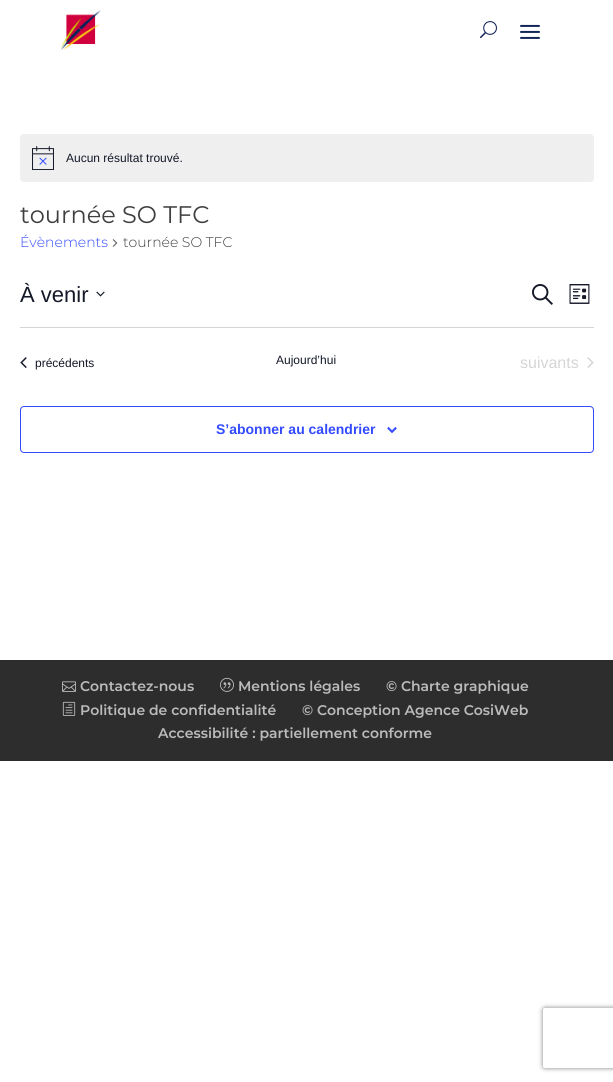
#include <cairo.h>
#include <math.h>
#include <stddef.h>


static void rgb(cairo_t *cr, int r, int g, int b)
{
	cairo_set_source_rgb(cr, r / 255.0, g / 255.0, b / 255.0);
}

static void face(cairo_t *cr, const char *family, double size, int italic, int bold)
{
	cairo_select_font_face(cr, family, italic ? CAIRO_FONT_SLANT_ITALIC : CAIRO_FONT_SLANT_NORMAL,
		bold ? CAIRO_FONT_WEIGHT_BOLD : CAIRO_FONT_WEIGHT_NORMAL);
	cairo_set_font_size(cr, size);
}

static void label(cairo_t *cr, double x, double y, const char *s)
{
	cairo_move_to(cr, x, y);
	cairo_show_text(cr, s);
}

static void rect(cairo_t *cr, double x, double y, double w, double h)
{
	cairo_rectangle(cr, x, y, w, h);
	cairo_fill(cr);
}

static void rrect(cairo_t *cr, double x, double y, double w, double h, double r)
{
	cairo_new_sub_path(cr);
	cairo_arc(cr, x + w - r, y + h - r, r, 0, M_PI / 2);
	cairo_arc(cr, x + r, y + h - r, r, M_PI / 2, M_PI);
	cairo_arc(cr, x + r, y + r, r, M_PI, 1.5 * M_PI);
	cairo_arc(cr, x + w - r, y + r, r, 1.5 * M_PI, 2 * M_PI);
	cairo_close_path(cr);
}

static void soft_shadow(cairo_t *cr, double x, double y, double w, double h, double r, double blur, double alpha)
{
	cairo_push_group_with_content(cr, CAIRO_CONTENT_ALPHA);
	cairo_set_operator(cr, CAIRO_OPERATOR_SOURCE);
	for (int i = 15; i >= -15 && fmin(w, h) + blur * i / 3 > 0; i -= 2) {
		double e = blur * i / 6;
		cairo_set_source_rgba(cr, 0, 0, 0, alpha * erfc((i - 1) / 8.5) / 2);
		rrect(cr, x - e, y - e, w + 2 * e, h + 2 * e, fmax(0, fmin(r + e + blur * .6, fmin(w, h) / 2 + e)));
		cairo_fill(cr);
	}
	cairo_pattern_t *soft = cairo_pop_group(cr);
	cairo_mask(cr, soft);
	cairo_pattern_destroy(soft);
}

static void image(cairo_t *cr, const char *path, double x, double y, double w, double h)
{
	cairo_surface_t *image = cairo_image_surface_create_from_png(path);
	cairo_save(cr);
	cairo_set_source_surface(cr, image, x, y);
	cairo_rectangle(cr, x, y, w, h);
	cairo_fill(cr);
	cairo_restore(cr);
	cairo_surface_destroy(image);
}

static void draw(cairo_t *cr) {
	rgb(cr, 255, 255, 255);
	cairo_paint(cr);
	image(cr, "image0.png", 61, 10, 40, 40);
	image(cr, "image1.png", 480, 21, 17, 18);
	image(cr, "image2.png", 520, 24, 20, 15);
	rgb(cr, 239, 239, 240);
	rrect(cr, 20, 134, 574, 48, 4);
	cairo_fill(cr);
	image(cr, "image3.png", 32, 146, 22, 24);
	face(cr, "Liberation Sans", 12, 0, 0);
	rgb(cr, 20, 24, 39);
	label(cr, 66, 162, "Aucun résultat trouvé.");
	face(cr, "Montserrat", 24, 0, 0);
	rgb(cr, 63, 63, 63);
	label(cr, 20, 223, "tournée SO TFC");
	face(cr, "Montserrat Light", 14, 0, 0);
	rgb(cr, 51, 74, 255);
	label(cr, 20, 247, "Évènements");
	image(cr, "image4.png", 112, 239, 6, 8);
	rgb(cr, 63, 63, 63);
	label(cr, 123, 247, "tournée SO TFC");
	face(cr, "Liberation Sans", 22, 0, 0);
	rgb(cr, 20, 24, 39);
	label(cr, 20, 302, "À venir");
	image(cr, "image5.png", 96, 291, 9, 6);
	image(cr, "image6.png", 532, 284, 21, 21);
	image(cr, "image7.png", 569, 284, 21, 20);
	rgb(cr, 213, 213, 213);
	rect(cr, 20, 327, 574, 1);
	image(cr, "image8.png", 20, 357, 7, 11);
	face(cr, "Liberation Sans", 12, 0, 0);
	rgb(cr, 20, 24, 39);
	label(cr, 35, 367, "précédents");
	label(cr, 276, 364, "Aujourd’hui");
	face(cr, "Liberation Sans", 16, 0, 0);
	rgb(cr, 213, 213, 213);
	label(cr, 520, 368, "suivants");
	image(cr, "image9.png", 587, 357, 7, 11);
	rrect(cr, 20.5, 406.5, 573, 46, 3.5);
	rgb(cr, 51, 74, 255);
	cairo_set_line_width(cr, 1);
	cairo_stroke(cr);
	face(cr, "Liberation Sans", 14, 0, 1);
	label(cr, 216, 434, "S’abonner au calendrier");
	image(cr, "image10.png", 387, 427, 10, 6);
	rgb(cr, 45, 45, 45);
	rect(cr, 0, 660, 613, 101);
	image(cr, "image11.png", 62, 681, 14, 11);
	face(cr, "Montserrat SemiBold", 14, 0, 0);
	rgb(cr, 187, 187, 187);
	label(cr, 80, 691, "Contactez-nous");
	image(cr, "image12.png", 220, 677, 14, 15);
	label(cr, 238, 691, "Mentions légales");
	label(cr, 386, 691, "© Charte graphique");
	image(cr, "image13.png", 62, 701, 14, 15);
	label(cr, 80, 715, "Politique de confidentialité");
	label(cr, 302, 715, "© Conception Agence CosiWeb");
	label(cr, 158, 738, "Accessibilité : partiellement conforme");
	cairo_save(cr);
	cairo_set_fill_rule(cr, CAIRO_FILL_RULE_EVEN_ODD);
	cairo_new_path(cr);
	cairo_move_to(cr, 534, 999);
	cairo_line_to(cr, 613, 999);
	cairo_line_to(cr, 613, 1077);
	cairo_line_to(cr, 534, 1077);
	cairo_close_path(cr);
	cairo_move_to(cr, 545, 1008);
	cairo_line_to(cr, 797, 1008);
	cairo_curve_to(cr, 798, 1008, 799, 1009, 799, 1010);
	cairo_line_to(cr, 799, 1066);
	cairo_curve_to(cr, 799, 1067, 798, 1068, 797, 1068);
	cairo_line_to(cr, 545, 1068);
	cairo_curve_to(cr, 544, 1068, 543, 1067, 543, 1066);
	cairo_line_to(cr, 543, 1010);
	cairo_curve_to(cr, 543, 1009, 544, 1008, 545, 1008);
	cairo_close_path(cr);
	cairo_clip(cr);
	rgb(cr, 128, 128, 128);
	soft_shadow(cr, 543, 1008, 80, 60, 2, 2.5, 1);
	cairo_restore(cr);
}

int main(void) {
	cairo_surface_t *surface = cairo_image_surface_create(CAIRO_FORMAT_RGB24, 613, 1082);
	cairo_t *cr = cairo_create(surface);
	cairo_font_options_t *options = cairo_font_options_create();
	cairo_font_options_set_hint_metrics(options, CAIRO_HINT_METRICS_OFF);
	cairo_font_options_set_hint_style(options, CAIRO_HINT_STYLE_NONE);
	cairo_set_font_options(cr, options);
	cairo_set_miter_limit(cr, 4);
	draw(cr);
	cairo_surface_write_to_png(surface, "render.png");
	cairo_font_options_destroy(options);
	cairo_destroy(cr);
	cairo_surface_destroy(surface);
	return 0;
}
